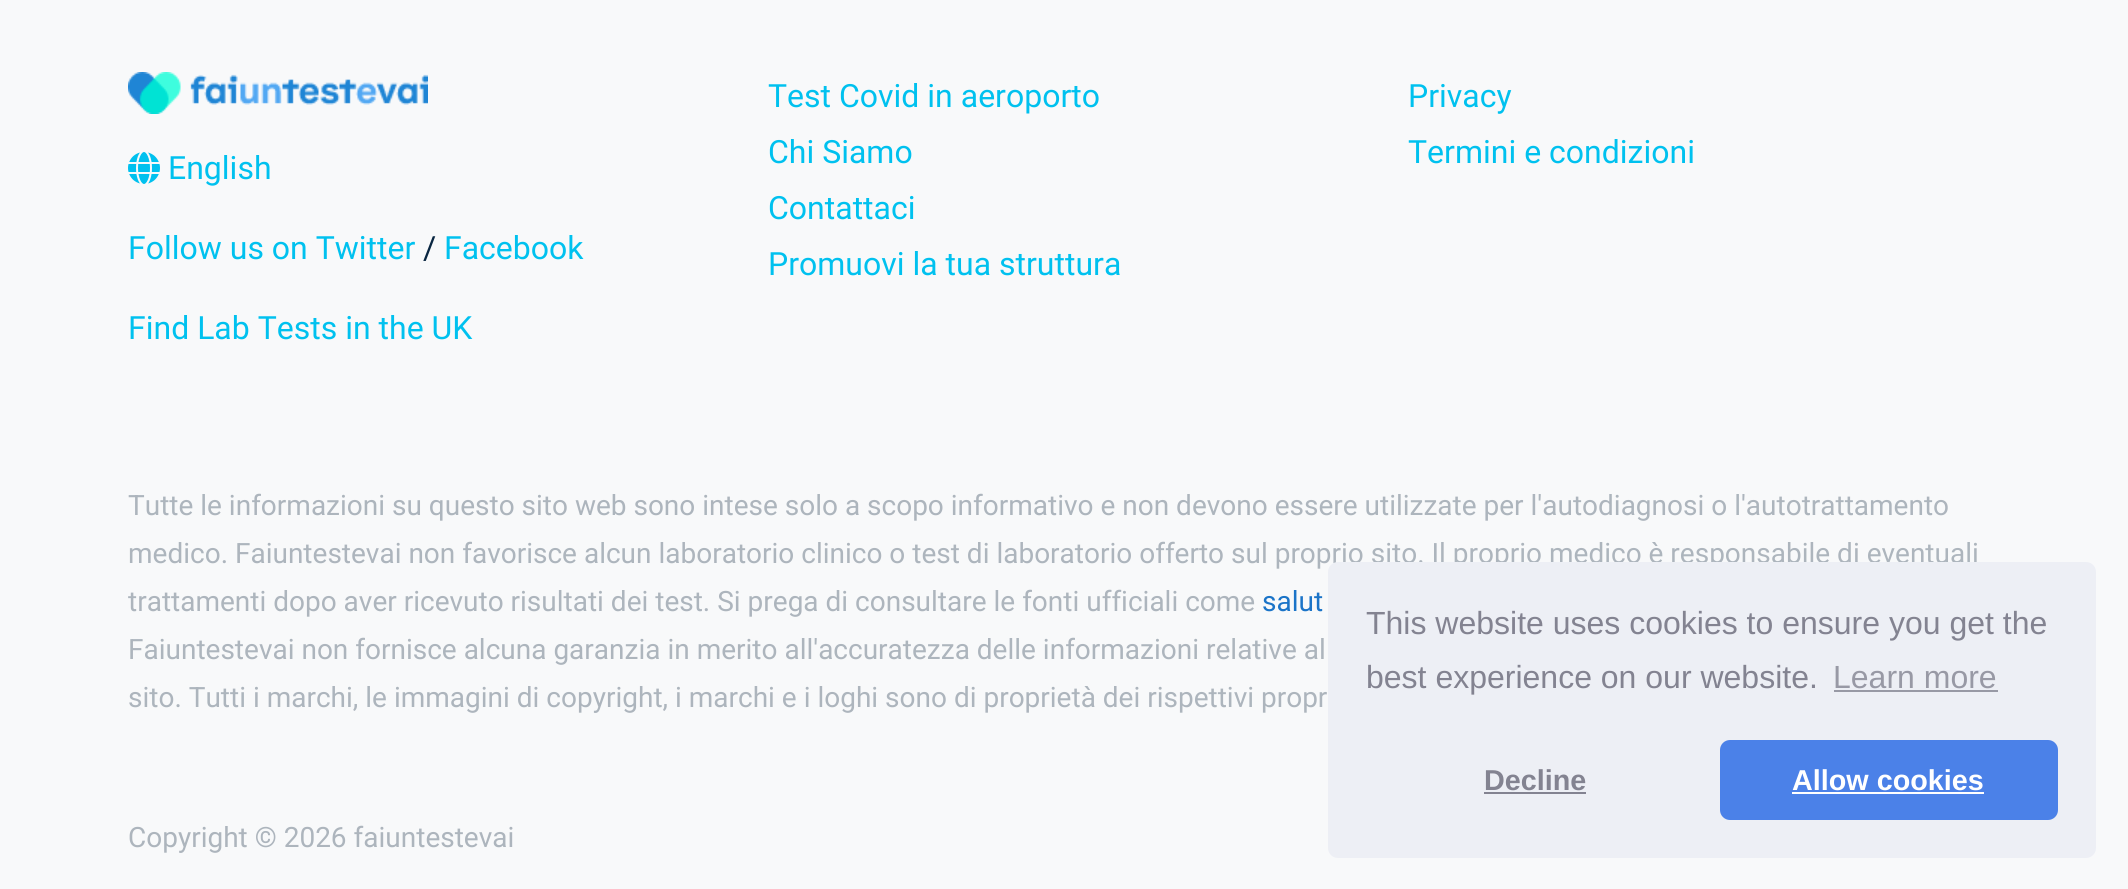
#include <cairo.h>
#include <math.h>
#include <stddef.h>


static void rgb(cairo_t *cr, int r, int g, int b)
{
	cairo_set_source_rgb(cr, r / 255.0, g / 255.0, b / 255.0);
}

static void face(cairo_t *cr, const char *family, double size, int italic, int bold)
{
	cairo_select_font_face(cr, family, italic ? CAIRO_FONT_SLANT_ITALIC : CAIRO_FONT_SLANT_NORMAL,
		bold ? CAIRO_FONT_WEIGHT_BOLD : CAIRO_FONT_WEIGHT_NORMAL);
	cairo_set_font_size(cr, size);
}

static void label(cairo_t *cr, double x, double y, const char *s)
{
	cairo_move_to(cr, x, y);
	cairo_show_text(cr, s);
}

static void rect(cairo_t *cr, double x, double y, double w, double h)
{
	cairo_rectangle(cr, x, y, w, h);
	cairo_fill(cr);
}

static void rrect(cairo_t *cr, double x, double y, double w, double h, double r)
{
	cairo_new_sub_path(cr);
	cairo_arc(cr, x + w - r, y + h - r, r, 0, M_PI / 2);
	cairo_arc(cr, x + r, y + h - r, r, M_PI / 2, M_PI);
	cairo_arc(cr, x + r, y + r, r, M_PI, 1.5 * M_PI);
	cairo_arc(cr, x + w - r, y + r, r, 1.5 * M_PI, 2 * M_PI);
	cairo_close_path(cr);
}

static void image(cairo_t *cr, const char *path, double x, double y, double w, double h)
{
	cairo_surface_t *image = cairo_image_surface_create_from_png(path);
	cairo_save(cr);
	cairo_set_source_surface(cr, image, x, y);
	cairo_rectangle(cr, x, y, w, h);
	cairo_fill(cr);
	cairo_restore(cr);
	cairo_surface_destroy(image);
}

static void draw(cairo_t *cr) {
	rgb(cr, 248, 249, 250);
	cairo_paint(cr);
	face(cr, "Roboto", 32, 0, 0);
	rgb(cr, 0, 193, 239);
	label(cr, 768, 107, "Test Covid in aeroporto");
	label(cr, 768, 163, "Chi Siamo");
	label(cr, 768, 219, "Contattaci");
	label(cr, 768, 275, "Promuovi la tua struttura");
	label(cr, 1408, 107, "Privacy");
	label(cr, 1408, 163, "Termini e condizioni");
	image(cr, "image0.png", 128, 72, 300, 42);
	image(cr, "image1.png", 128, 152, 32, 32);
	label(cr, 168, 179, "English");
	label(cr, 128, 259, "Follow us on Twitter");
	rgb(cr, 9, 38, 65);
	label(cr, 423, 259, "/");
	rgb(cr, 0, 193, 239);
	label(cr, 444, 259, "Facebook");
	label(cr, 128, 339, "Find Lab Tests in the UK");
	face(cr, "Roboto", 28, 0, 0);
	rgb(cr, 173, 181, 189);
	label(cr, 128, 515, "Tutte le informazioni su questo sito web sono intese solo a scopo informativo e non devono essere utilizzate per l'autodiagnosi o l'autotrattamento");
	label(cr, 128, 563, "medico. Faiuntestevai non favorisce alcun laboratorio clinico o test di laboratorio offerto sul proprio sito. Il proprio medico è responsabile di eventuali");
	label(cr, 128, 611, "trattamenti dopo aver ricevuto risultati dei test. Si prega di consultare le fonti ufficiali come");
	rgb(cr, 27, 116, 200);
	label(cr, 1262, 611, "salut");
	rgb(cr, 173, 181, 189);
	label(cr, 128, 659, "Faiuntestevai non fornisce alcuna garanzia in merito all'accuratezza delle informazioni relative al");
	label(cr, 128, 707, "sito. Tutti i marchi, le immagini di copyright, i marchi e i loghi sono di proprietà dei rispettivi propr");
	label(cr, 128, 847, "Copyright © 2026 faiuntestevai");
	rgb(cr, 237, 239, 245);
	rrect(cr, 1328, 562, 768, 296, 10);
	cairo_fill(cr);
	face(cr, "Liberation Sans", 32, 0, 0);
	rgb(cr, 131, 131, 145);
	label(cr, 1366, 634, "This website uses cookies to ensure you get the");
	label(cr, 1366, 688, "best experience on our website.");
	rgb(cr, 152, 153, 165);
	label(cr, 1833, 688, "Learn more");
	rect(cr, 1834, 690, 164, 2);
	face(cr, "Liberation Sans", 28.75, 0, 1);
	rgb(cr, 131, 131, 145);
	label(cr, 1484, 790, "Decline");
	rect(cr, 1484, 792, 102, 2);
	rgb(cr, 75, 129, 232);
	rrect(cr, 1720, 740, 338, 80, 10);
	cairo_fill(cr);
	rgb(cr, 255, 255, 255);
	label(cr, 1792, 790, "Allow cookies");
	rect(cr, 1792, 792, 192, 2);
}

int main(void) {
	cairo_surface_t *surface = cairo_image_surface_create(CAIRO_FORMAT_RGB24, 2128, 889);
	cairo_t *cr = cairo_create(surface);
	cairo_font_options_t *options = cairo_font_options_create();
	cairo_font_options_set_hint_metrics(options, CAIRO_HINT_METRICS_OFF);
	cairo_font_options_set_hint_style(options, CAIRO_HINT_STYLE_NONE);
	cairo_set_font_options(cr, options);
	cairo_set_miter_limit(cr, 4);
	draw(cr);
	cairo_surface_write_to_png(surface, "render.png");
	cairo_font_options_destroy(options);
	cairo_destroy(cr);
	cairo_surface_destroy(surface);
	return 0;
}
